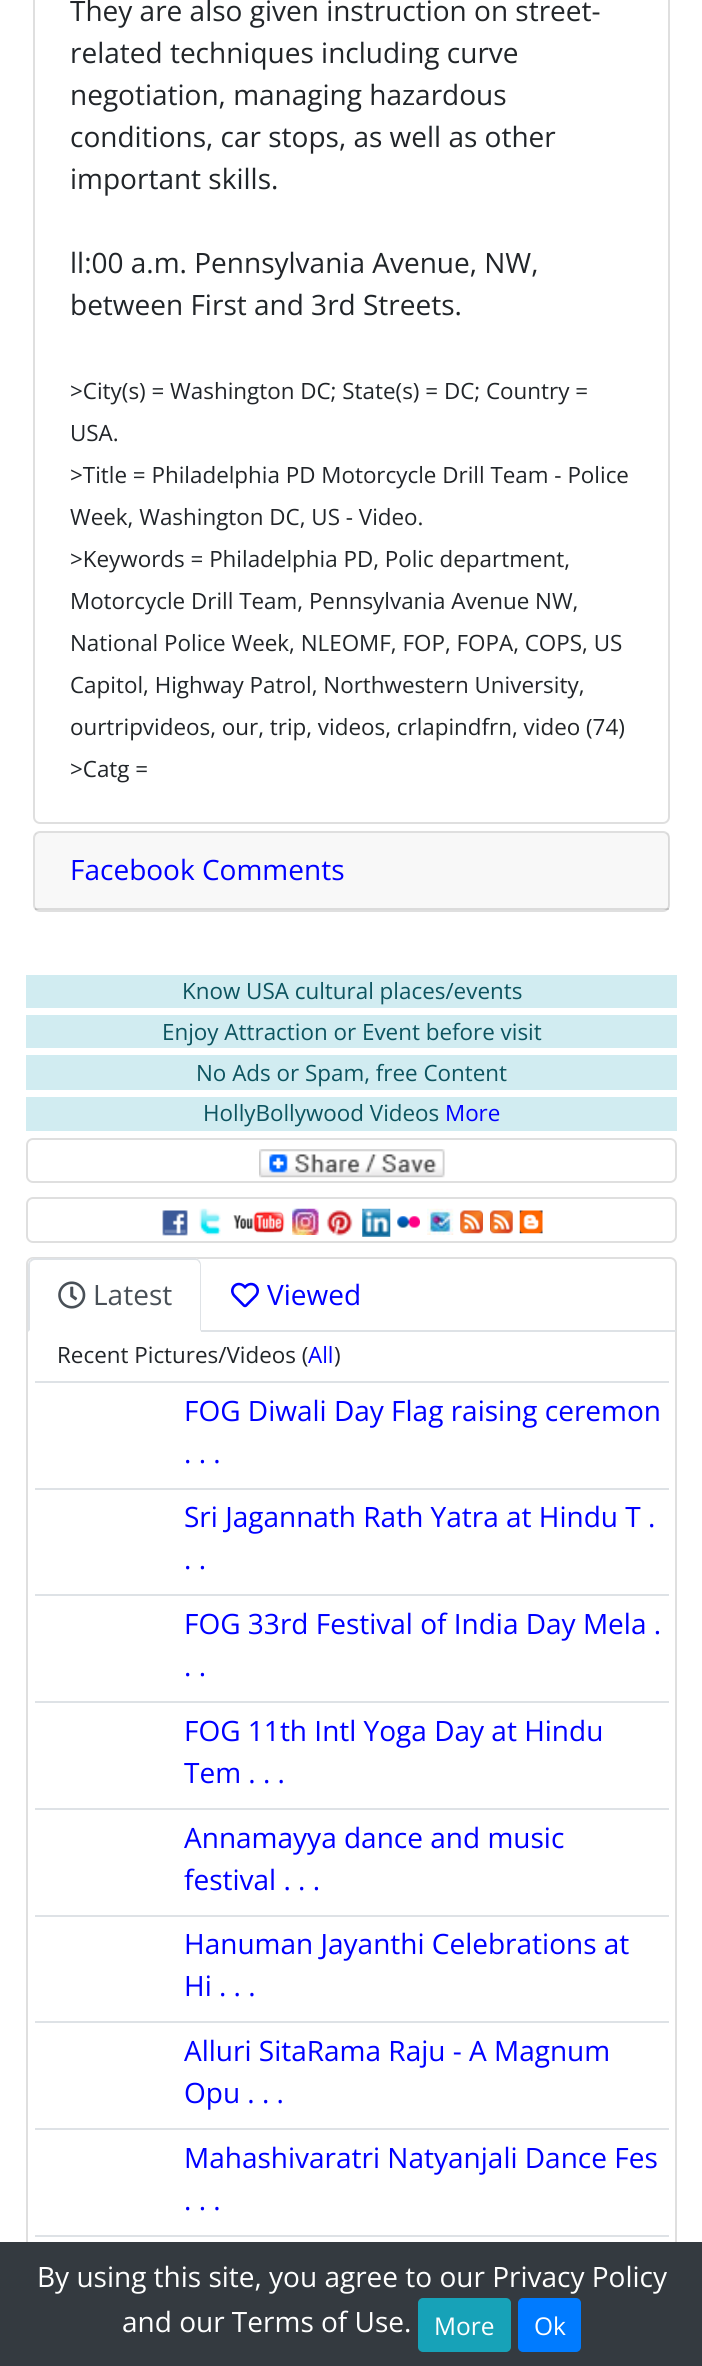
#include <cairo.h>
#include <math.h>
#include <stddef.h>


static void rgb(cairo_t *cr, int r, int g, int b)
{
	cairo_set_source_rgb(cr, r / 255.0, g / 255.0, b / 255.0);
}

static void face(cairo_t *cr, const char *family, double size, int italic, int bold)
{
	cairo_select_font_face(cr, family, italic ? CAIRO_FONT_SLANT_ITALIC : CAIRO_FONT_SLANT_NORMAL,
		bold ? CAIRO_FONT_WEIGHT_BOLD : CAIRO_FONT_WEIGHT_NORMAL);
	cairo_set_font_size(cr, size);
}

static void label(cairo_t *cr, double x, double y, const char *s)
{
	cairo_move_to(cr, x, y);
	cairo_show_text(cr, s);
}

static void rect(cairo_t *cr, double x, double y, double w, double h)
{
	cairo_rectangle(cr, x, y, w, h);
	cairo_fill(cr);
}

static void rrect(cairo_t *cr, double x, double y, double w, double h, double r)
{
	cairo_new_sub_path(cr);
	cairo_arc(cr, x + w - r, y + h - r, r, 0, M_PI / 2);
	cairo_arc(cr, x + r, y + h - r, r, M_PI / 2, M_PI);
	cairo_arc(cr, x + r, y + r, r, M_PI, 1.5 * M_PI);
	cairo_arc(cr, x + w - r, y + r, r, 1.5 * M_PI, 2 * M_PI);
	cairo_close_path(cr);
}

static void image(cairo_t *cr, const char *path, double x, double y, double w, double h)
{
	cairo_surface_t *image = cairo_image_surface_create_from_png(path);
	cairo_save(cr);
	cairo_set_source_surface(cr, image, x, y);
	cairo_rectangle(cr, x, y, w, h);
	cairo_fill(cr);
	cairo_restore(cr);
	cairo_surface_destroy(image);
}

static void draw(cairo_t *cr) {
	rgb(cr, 255, 255, 255);
	cairo_paint(cr);
	rrect(cr, 34, -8, 635, 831, 6);
	rgb(cr, 223, 223, 223);
	cairo_stroke(cr);
	face(cr, "Open Sans", 28, 0, 0);
	rgb(cr, 33, 37, 41);
	label(cr, 70, 21, "They are also given instruction on street-");
	label(cr, 70, 63, "related techniques including curve");
	label(cr, 70, 105, "negotiation, managing hazardous");
	label(cr, 70, 147, "conditions, car stops, as well as other");
	label(cr, 70, 189, "important skills.");
	label(cr, 70, 273, "ll:00 a.m. Pennsylvania Avenue, NW,");
	label(cr, 70, 315, "between First and 3rd Streets.");
	face(cr, "Open Sans", 22.4, 0, 0);
	label(cr, 70, 399, ">City(s) = Washington DC; State(s) = DC; Country =");
	label(cr, 70, 441, "USA.");
	label(cr, 70, 483, ">Title = Philadelphia PD Motorcycle Drill Team - Police");
	label(cr, 70, 525, "Week, Washington DC, US - Video.");
	label(cr, 70, 567, ">Keywords = Philadelphia PD, Polic department,");
	label(cr, 70, 609, "Motorcycle Drill Team, Pennsylvania Avenue NW,");
	label(cr, 70, 651, "National Police Week, NLEOMF, FOP, FOPA, COPS, US");
	label(cr, 70, 693, "Capitol, Highway Patrol, Northwestern University,");
	label(cr, 70, 735, "ourtripvideos, our, trip, videos, crlapindfrn, video (74)");
	label(cr, 70, 777, ">Catg =");
	rrect(cr, 34, 832, 635, 79, 6);
	rgb(cr, 223, 223, 223);
	cairo_stroke(cr);
	cairo_set_source_rgba(cr, 0, 0, 0, 0.03);
	rect(cr, 35, 833, 634, 77);
	cairo_set_source_rgba(cr, 0, 0, 0, 0.12);
	rect(cr, 35, 908, 634, 2);
	face(cr, "Open Sans", 28, 0, 0);
	rgb(cr, 0, 0, 255);
	label(cr, 70, 880, "Facebook Comments");
	rgb(cr, 209, 236, 241);
	rect(cr, 26, 975, 651, 33);
	face(cr, "Open Sans", 22.4, 0, 0);
	rgb(cr, 12, 84, 96);
	label(cr, 182, 999, "Know USA cultural places/events");
	rgb(cr, 209, 236, 241);
	rect(cr, 26, 1015, 651, 33);
	rgb(cr, 12, 84, 96);
	label(cr, 162, 1040, "Enjoy Attraction or Event before visit");
	rgb(cr, 209, 236, 241);
	rect(cr, 26, 1055, 651, 35);
	rgb(cr, 12, 84, 96);
	label(cr, 196, 1081, "No Ads or Spam, free Content");
	rgb(cr, 209, 236, 241);
	rect(cr, 26, 1097, 651, 34);
	rgb(cr, 12, 84, 96);
	label(cr, 203, 1121, "HollyBollywood Videos");
	rgb(cr, 0, 0, 255);
	label(cr, 445, 1121, "More");
	rrect(cr, 27, 1139, 649, 43, 6);
	rgb(cr, 223, 223, 223);
	cairo_stroke(cr);
	image(cr, "image0.png", 259, 1149, 186, 29);
	rrect(cr, 27, 1198, 649, 44, 6);
	cairo_stroke(cr);
	image(cr, "image1.png", 162, 1210, 26, 26);
	image(cr, "image2.png", 199, 1208, 22, 28);
	image(cr, "image3.png", 233, 1211, 52, 22);
	image(cr, "image4.png", 292, 1208, 27, 27);
	image(cr, "image5.png", 326, 1210, 27, 26);
	image(cr, "image6.png", 362, 1208, 29, 29);
	image(cr, "image7.png", 397, 1216, 23, 12);
	image(cr, "image8.png", 427, 1208, 27, 27);
	image(cr, "image9.png", 460, 1210, 23, 24);
	image(cr, "image10.png", 490, 1210, 23, 24);
	image(cr, "image11.png", 519, 1210, 24, 24);
	rrect(cr, 27, 1258, 649, 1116, 6);
	cairo_stroke(cr);
	rgb(cr, 222, 226, 230);
	rect(cr, 201, 1330, 475, 2);
	rgb(cr, 255, 255, 255);
	cairo_new_path(cr);
	cairo_move_to(cr, 35, 1258);
	cairo_line_to(cr, 194, 1258);
	cairo_curve_to(cr, 198, 1258, 201, 1261, 201, 1265);
	cairo_line_to(cr, 201, 1332);
	cairo_line_to(cr, 28, 1332);
	cairo_line_to(cr, 28, 1265);
	cairo_curve_to(cr, 28, 1261, 31, 1258, 35, 1258);
	cairo_close_path(cr);
	cairo_fill(cr);
	rgb(cr, 222, 226, 230);
	cairo_new_path(cr);
	cairo_move_to(cr, 35, 1260);
	cairo_curve_to(cr, 33, 1260, 32, 1261, 31, 1262);
	cairo_line_to(cr, 30, 1260);
	cairo_line_to(cr, 33, 1258);
	cairo_line_to(cr, 196, 1258);
	cairo_line_to(cr, 199, 1260);
	cairo_line_to(cr, 198, 1261);
	cairo_curve_to(cr, 197, 1260, 196, 1260, 194, 1260);
	cairo_close_path(cr);
	cairo_fill(cr);
	cairo_new_path(cr);
	cairo_move_to(cr, 199, 1260);
	cairo_curve_to(cr, 200, 1261, 201, 1263, 201, 1265);
	cairo_line_to(cr, 201, 1332);
	cairo_line_to(cr, 200, 1330);
	cairo_line_to(cr, 200, 1264);
	cairo_line_to(cr, 198, 1261);
	cairo_close_path(cr);
	cairo_fill(cr);
	rgb(cr, 255, 255, 255);
	cairo_new_path(cr);
	cairo_move_to(cr, 201, 1332);
	cairo_line_to(cr, 28, 1332);
	cairo_line_to(cr, 30, 1330);
	cairo_line_to(cr, 200, 1330);
	cairo_close_path(cr);
	cairo_fill(cr);
	rgb(cr, 222, 226, 230);
	cairo_new_path(cr);
	cairo_move_to(cr, 28, 1332);
	cairo_line_to(cr, 30, 1330);
	cairo_line_to(cr, 30, 1265);
	cairo_curve_to(cr, 30, 1264, 30, 1262, 31, 1262);
	cairo_line_to(cr, 30, 1260);
	cairo_curve_to(cr, 29, 1261, 28, 1263, 28, 1265);
	cairo_close_path(cr);
	cairo_fill(cr);
	image(cr, "image12.png", 58, 1281, 28, 28);
	face(cr, "Open Sans", 28, 0, 0);
	rgb(cr, 73, 80, 87);
	label(cr, 93, 1305, "Latest");
	image(cr, "image13.png", 231, 1282, 28, 26);
	rgb(cr, 0, 0, 255);
	label(cr, 267, 1305, "Viewed");
	face(cr, "Open Sans", 22.4, 0, 0);
	rgb(cr, 33, 37, 41);
	label(cr, 57, 1363, "Recent Pictures/Videos (");
	rgb(cr, 0, 0, 255);
	label(cr, 308, 1363, "All");
	rgb(cr, 33, 37, 41);
	label(cr, 334, 1363, ")");
	rgb(cr, 222, 226, 230);
	rect(cr, 35, 1381, 634, 2);
	face(cr, "Open Sans", 28, 0, 0);
	rgb(cr, 0, 0, 255);
	label(cr, 184, 1421, "FOG Diwali Day Flag raising ceremon");
	label(cr, 184, 1463, ". . .");
	rgb(cr, 222, 226, 230);
	rect(cr, 35, 1488, 634, 2);
	rgb(cr, 0, 0, 255);
	label(cr, 184, 1527, "Sri Jagannath Rath Yatra at Hindu T .");
	label(cr, 184, 1569, ". .");
	rgb(cr, 222, 226, 230);
	rect(cr, 35, 1594, 634, 2);
	rgb(cr, 0, 0, 255);
	label(cr, 184, 1634, "FOG 33rd Festival of India Day Mela .");
	label(cr, 184, 1676, ". .");
	rgb(cr, 222, 226, 230);
	rect(cr, 35, 1701, 634, 2);
	rgb(cr, 0, 0, 255);
	label(cr, 184, 1741, "FOG 11th Intl Yoga Day at Hindu");
	label(cr, 184, 1783, "Tem . . .");
	rgb(cr, 222, 226, 230);
	rect(cr, 35, 1808, 634, 2);
	rgb(cr, 0, 0, 255);
	label(cr, 184, 1848, "Annamayya dance and music");
	label(cr, 184, 1890, "festival . . .");
	rgb(cr, 222, 226, 230);
	rect(cr, 35, 1915, 634, 2);
	rgb(cr, 0, 0, 255);
	label(cr, 184, 1954, "Hanuman Jayanthi Celebrations at");
	label(cr, 184, 1996, "Hi . . .");
	rgb(cr, 222, 226, 230);
	rect(cr, 35, 2021, 634, 2);
	rgb(cr, 0, 0, 255);
	label(cr, 184, 2061, "Alluri SitaRama Raju - A Magnum");
	label(cr, 184, 2103, "Opu . . .");
	rgb(cr, 222, 226, 230);
	rect(cr, 35, 2128, 634, 2);
	rgb(cr, 0, 0, 255);
	label(cr, 184, 2168, "Mahashivaratri Natyanjali Dance Fes");
	label(cr, 184, 2210, ". . .");
	rgb(cr, 222, 226, 230);
	rect(cr, 35, 2235, 634, 2);
	rgb(cr, 52, 58, 64);
	rect(cr, 0, 2242, 702, 124);
	rgb(cr, 255, 255, 255);
	label(cr, 37, 2287, "By using this site, you agree to our Privacy Policy");
	label(cr, 122, 2332, "and our Terms of Use.");
	rgb(cr, 23, 162, 184);
	rrect(cr, 419, 2299, 91, 52, 4);
	cairo_fill_preserve(cr);
	cairo_stroke(cr);
	face(cr, "Open Sans", 24.5, 0, 0);
	rgb(cr, 255, 255, 255);
	label(cr, 434, 2335, "More");
	rgb(cr, 0, 123, 255);
	rrect(cr, 519, 2299, 61, 52, 4);
	cairo_fill_preserve(cr);
	cairo_stroke(cr);
	rgb(cr, 255, 255, 255);
	label(cr, 534, 2335, "Ok");
}

int main(void) {
	cairo_surface_t *surface = cairo_image_surface_create(CAIRO_FORMAT_RGB24, 702, 2366);
	cairo_t *cr = cairo_create(surface);
	cairo_font_options_t *options = cairo_font_options_create();
	cairo_font_options_set_hint_metrics(options, CAIRO_HINT_METRICS_OFF);
	cairo_font_options_set_hint_style(options, CAIRO_HINT_STYLE_NONE);
	cairo_set_font_options(cr, options);
	cairo_set_miter_limit(cr, 4);
	draw(cr);
	cairo_surface_write_to_png(surface, "render.png");
	cairo_font_options_destroy(options);
	cairo_destroy(cr);
	cairo_surface_destroy(surface);
	return 0;
}
